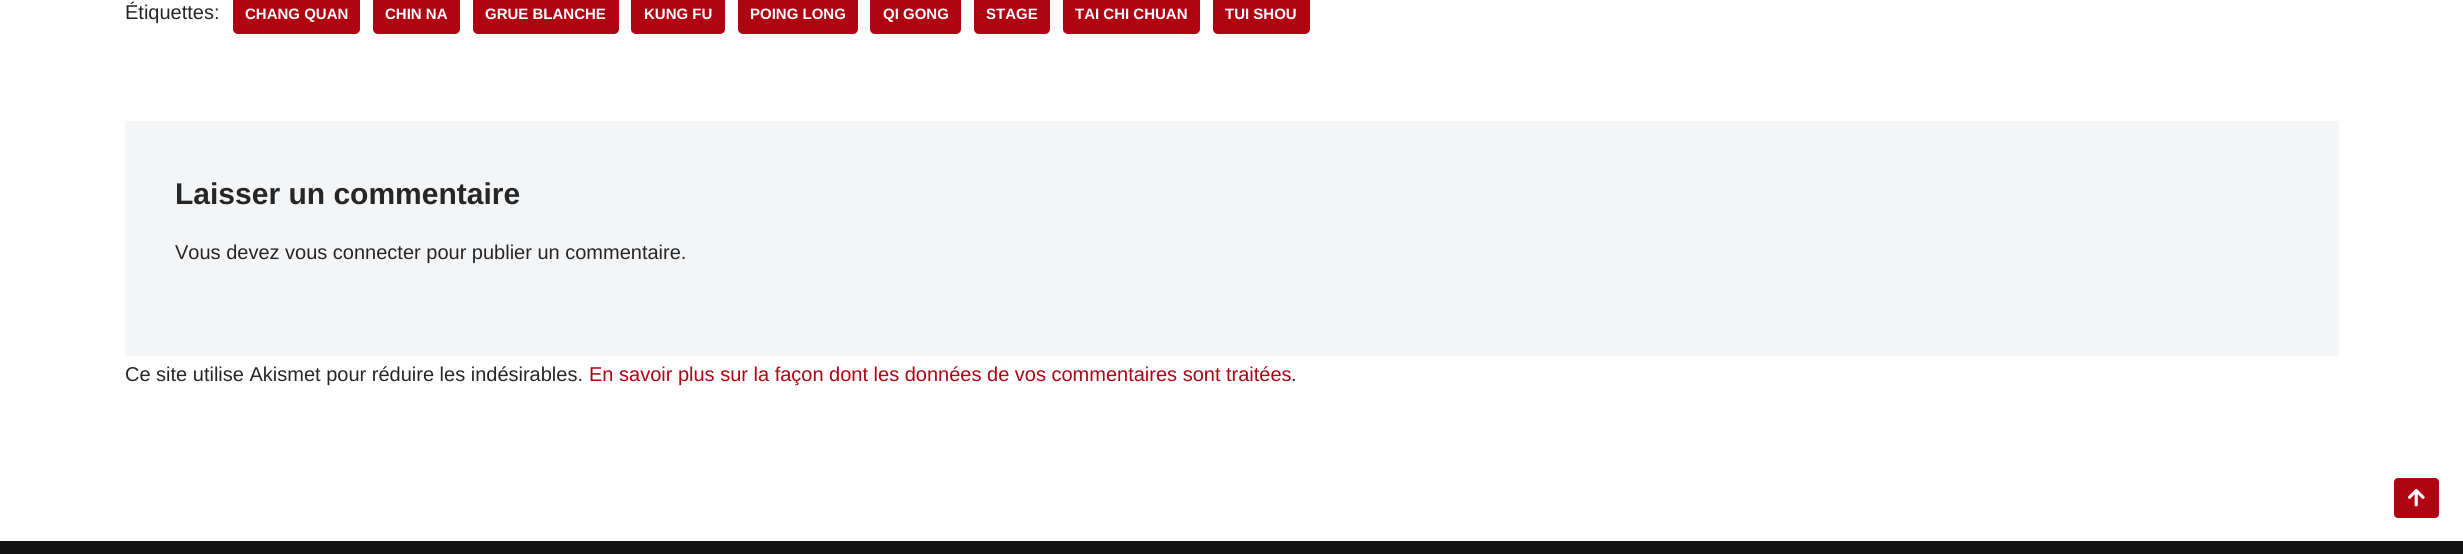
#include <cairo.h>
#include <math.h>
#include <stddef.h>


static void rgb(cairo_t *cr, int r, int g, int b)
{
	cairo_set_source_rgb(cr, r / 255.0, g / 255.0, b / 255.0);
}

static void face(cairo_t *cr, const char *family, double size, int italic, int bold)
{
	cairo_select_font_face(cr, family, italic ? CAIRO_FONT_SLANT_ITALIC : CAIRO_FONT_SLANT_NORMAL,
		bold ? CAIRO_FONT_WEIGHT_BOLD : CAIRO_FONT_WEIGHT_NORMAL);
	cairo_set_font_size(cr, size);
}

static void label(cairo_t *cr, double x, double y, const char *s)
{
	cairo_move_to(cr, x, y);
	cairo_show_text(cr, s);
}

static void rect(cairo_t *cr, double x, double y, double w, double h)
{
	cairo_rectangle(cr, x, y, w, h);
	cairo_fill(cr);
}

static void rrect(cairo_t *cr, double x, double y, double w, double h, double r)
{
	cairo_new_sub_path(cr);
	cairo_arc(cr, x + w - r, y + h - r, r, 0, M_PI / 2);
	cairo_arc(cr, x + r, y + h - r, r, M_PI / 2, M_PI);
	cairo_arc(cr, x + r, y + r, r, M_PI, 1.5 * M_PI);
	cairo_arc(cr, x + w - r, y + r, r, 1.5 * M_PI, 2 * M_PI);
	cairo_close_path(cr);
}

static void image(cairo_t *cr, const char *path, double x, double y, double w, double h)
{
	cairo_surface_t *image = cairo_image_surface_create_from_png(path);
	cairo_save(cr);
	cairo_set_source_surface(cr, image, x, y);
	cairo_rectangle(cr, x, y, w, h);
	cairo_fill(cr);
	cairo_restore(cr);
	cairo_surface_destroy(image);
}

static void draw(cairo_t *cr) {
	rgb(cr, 255, 255, 255);
	cairo_paint(cr);
	face(cr, "Liberation Sans", 20, 0, 0);
	rgb(cr, 39, 38, 38);
	label(cr, 125, 19, "Étiquettes:");
	rgb(cr, 175, 3, 17);
	rrect(cr, 233, -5, 127, 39, 5);
	cairo_fill(cr);
	face(cr, "Liberation Sans", 15, 0, 1);
	rgb(cr, 255, 255, 255);
	label(cr, 245, 19, "CHANG QUAN");
	rgb(cr, 175, 3, 17);
	rrect(cr, 373, -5, 87, 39, 5);
	cairo_fill(cr);
	rgb(cr, 255, 255, 255);
	label(cr, 385, 19, "CHIN NA");
	rgb(cr, 175, 3, 17);
	rrect(cr, 473, -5, 146, 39, 5);
	cairo_fill(cr);
	rgb(cr, 255, 255, 255);
	label(cr, 485, 19, "GRUE BLANCHE");
	rgb(cr, 175, 3, 17);
	rrect(cr, 631, -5, 94, 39, 5);
	cairo_fill(cr);
	rgb(cr, 255, 255, 255);
	label(cr, 644, 19, "KUNG FU");
	rgb(cr, 175, 3, 17);
	rrect(cr, 738, -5, 120, 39, 5);
	cairo_fill(cr);
	rgb(cr, 255, 255, 255);
	label(cr, 750, 19, "POING LONG");
	rgb(cr, 175, 3, 17);
	rrect(cr, 870, -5, 91, 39, 5);
	cairo_fill(cr);
	rgb(cr, 255, 255, 255);
	label(cr, 883, 19, "QI GONG");
	rgb(cr, 175, 3, 17);
	rrect(cr, 974, -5, 76, 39, 5);
	cairo_fill(cr);
	rgb(cr, 255, 255, 255);
	label(cr, 986, 19, "STAGE");
	rgb(cr, 175, 3, 17);
	rrect(cr, 1063, -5, 137, 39, 5);
	cairo_fill(cr);
	rgb(cr, 255, 255, 255);
	label(cr, 1075, 19, "TAI CHI CHUAN");
	rgb(cr, 175, 3, 17);
	rrect(cr, 1213, -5, 97, 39, 5);
	cairo_fill(cr);
	rgb(cr, 255, 255, 255);
	label(cr, 1225, 19, "TUI SHOU");
	rgb(cr, 244, 245, 247);
	rect(cr, 125, 121, 2214, 235);
	face(cr, "Liberation Sans", 30, 0, 1);
	rgb(cr, 39, 38, 38);
	label(cr, 175, 204, "Laisser un commentaire");
	face(cr, "Liberation Sans", 20, 0, 0);
	label(cr, 175, 259, "Vous devez vous connecter pour publier un commentaire.");
	label(cr, 125, 381, "Ce site utilise Akismet pour réduire les indésirables.");
	rgb(cr, 175, 3, 17);
	label(cr, 589, 381, "En savoir plus sur la façon dont les données de vos commentaires sont traitées");
	rgb(cr, 39, 38, 38);
	label(cr, 1291, 381, ".");
	rgb(cr, 175, 3, 17);
	rrect(cr, 2394, 478, 45, 40, 4);
	cairo_fill(cr);
	image(cr, "image0.png", 2407, 488, 18, 19);
	rgb(cr, 18, 18, 18);
	rect(cr, 0, 541, 2463, 13);
}

int main(void) {
	cairo_surface_t *surface = cairo_image_surface_create(CAIRO_FORMAT_RGB24, 2463, 554);
	cairo_t *cr = cairo_create(surface);
	cairo_font_options_t *options = cairo_font_options_create();
	cairo_font_options_set_hint_metrics(options, CAIRO_HINT_METRICS_OFF);
	cairo_font_options_set_hint_style(options, CAIRO_HINT_STYLE_NONE);
	cairo_set_font_options(cr, options);
	cairo_set_miter_limit(cr, 4);
	draw(cr);
	cairo_surface_write_to_png(surface, "render.png");
	cairo_font_options_destroy(options);
	cairo_destroy(cr);
	cairo_surface_destroy(surface);
	return 0;
}
